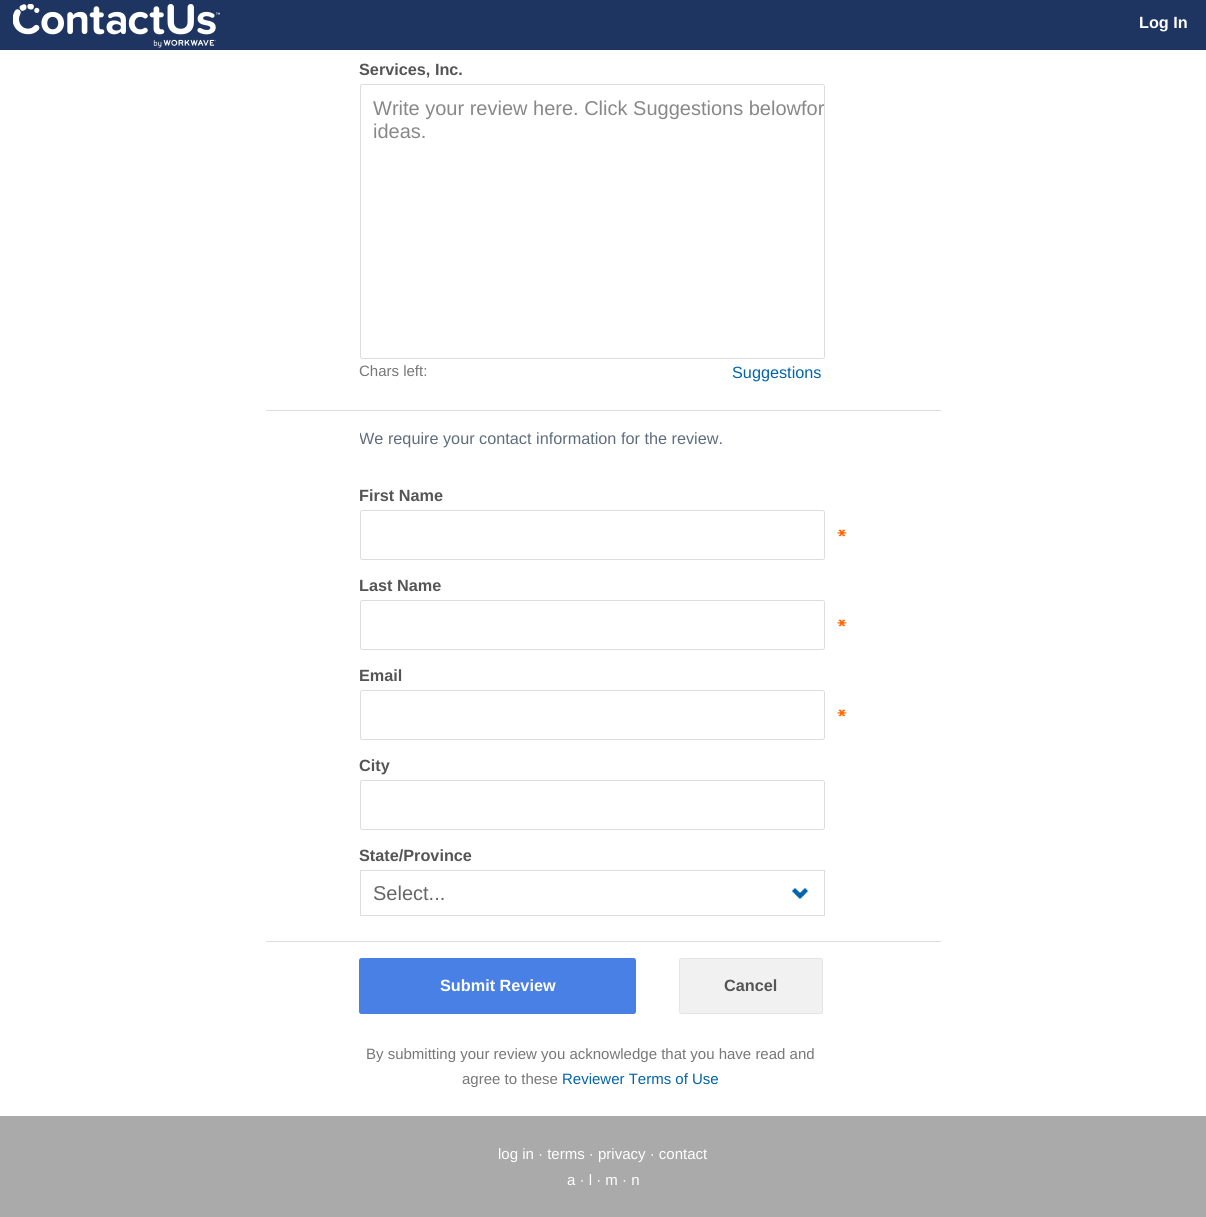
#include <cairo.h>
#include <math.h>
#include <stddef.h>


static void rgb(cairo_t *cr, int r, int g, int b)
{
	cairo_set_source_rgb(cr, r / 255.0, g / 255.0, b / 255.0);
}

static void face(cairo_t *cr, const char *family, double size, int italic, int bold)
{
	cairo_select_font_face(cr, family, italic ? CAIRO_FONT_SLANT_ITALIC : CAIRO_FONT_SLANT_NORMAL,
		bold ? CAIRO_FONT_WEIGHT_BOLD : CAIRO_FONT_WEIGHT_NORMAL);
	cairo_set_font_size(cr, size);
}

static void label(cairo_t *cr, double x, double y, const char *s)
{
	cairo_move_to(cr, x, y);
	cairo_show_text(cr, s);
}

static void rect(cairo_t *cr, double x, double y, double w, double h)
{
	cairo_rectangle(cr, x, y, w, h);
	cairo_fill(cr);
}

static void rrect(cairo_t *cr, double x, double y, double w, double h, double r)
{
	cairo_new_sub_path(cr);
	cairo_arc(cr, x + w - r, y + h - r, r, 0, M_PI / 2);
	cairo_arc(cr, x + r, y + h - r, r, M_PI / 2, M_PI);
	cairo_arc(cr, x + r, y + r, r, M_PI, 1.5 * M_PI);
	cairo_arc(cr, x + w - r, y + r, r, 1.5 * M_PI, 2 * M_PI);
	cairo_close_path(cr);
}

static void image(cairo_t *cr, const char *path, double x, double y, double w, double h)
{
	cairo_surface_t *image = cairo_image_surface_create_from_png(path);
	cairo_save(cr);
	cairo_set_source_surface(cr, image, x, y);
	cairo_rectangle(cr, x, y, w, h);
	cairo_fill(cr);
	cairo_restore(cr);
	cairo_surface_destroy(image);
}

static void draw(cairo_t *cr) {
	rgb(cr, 170, 170, 170);
	cairo_paint(cr);
	rgb(cr, 29, 53, 96);
	rect(cr, 0, 0, 1206, 50);
	image(cr, "image0.png", 13, 4, 207, 44);
	face(cr, "Liberation Sans", 16.25, 0, 1);
	rgb(cr, 255, 255, 255);
	label(cr, 1139, 28, "Log In");
	rect(cr, 0, 50, 1206, 1066);
	rgb(cr, 85, 85, 85);
	label(cr, 359, 75, "Services, Inc.");
	rrect(cr, 360.5, 84.5, 464, 274, 2);
	rgb(cr, 221, 221, 221);
	cairo_set_line_width(cr, 1);
	cairo_stroke(cr);
	face(cr, "Liberation Sans", 20, 0, 0);
	rgb(cr, 136, 136, 136);
	label(cr, 373, 115, "Write your review here. Click Suggestions belowfor");
	label(cr, 373, 138, "ideas.");
	face(cr, "Liberation Sans", 15, 0, 0);
	rgb(cr, 119, 119, 119);
	label(cr, 359, 376, "Chars left:");
	face(cr, "Liberation Sans", 16.25, 0, 0);
	rgb(cr, 0, 99, 171);
	label(cr, 732, 378, "Suggestions");
	rgb(cr, 221, 221, 221);
	rect(cr, 266, 410, 675, 1);
	cairo_save(cr);
	cairo_rectangle(cr, 360, 424, 488, 46);
	cairo_clip(cr);
	rgb(cr, 94, 109, 124);
	label(cr, 359, 444, "We require your contact information for the review.");
	cairo_restore(cr);
	face(cr, "Liberation Sans", 16.25, 0, 1);
	rgb(cr, 85, 85, 85);
	label(cr, 359, 501, "First Name");
	image(cr, "image1.png", 837, 529, 10, 8);
	rrect(cr, 360.5, 510.5, 464, 49, 2);
	rgb(cr, 221, 221, 221);
	cairo_stroke(cr);
	rgb(cr, 85, 85, 85);
	label(cr, 359, 591, "Last Name");
	image(cr, "image1.png", 837, 619, 10, 8);
	rrect(cr, 360.5, 600.5, 464, 49, 2);
	rgb(cr, 221, 221, 221);
	cairo_stroke(cr);
	rgb(cr, 85, 85, 85);
	label(cr, 359, 681, "Email");
	image(cr, "image1.png", 837, 709, 10, 8);
	rrect(cr, 360.5, 690.5, 464, 49, 2);
	rgb(cr, 221, 221, 221);
	cairo_stroke(cr);
	rgb(cr, 85, 85, 85);
	label(cr, 359, 771, "City");
	rrect(cr, 360.5, 780.5, 464, 49, 2);
	rgb(cr, 221, 221, 221);
	cairo_stroke(cr);
	rgb(cr, 85, 85, 85);
	label(cr, 359, 861, "State/Province");
	image(cr, "image2.png", 792, 888, 16, 11);
	cairo_rectangle(cr, 360.5, 870.5, 464, 45);
	rgb(cr, 221, 221, 221);
	cairo_stroke(cr);
	face(cr, "Liberation Sans", 20, 0, 0);
	rgb(cr, 102, 102, 102);
	label(cr, 373, 900, "Select...");
	rgb(cr, 221, 221, 221);
	rect(cr, 266, 941, 675, 1);
	rgb(cr, 72, 128, 230);
	rrect(cr, 359.5, 958.5, 276, 55, 2);
	cairo_fill_preserve(cr);
	cairo_stroke(cr);
	face(cr, "Liberation Sans", 16.25, 0, 1);
	rgb(cr, 255, 255, 255);
	label(cr, 440, 991, "Submit Review");
	rgb(cr, 241, 241, 241);
	rrect(cr, 679.5, 958.5, 143, 55, 2);
	cairo_fill_preserve(cr);
	rgb(cr, 228, 228, 228);
	cairo_stroke(cr);
	rgb(cr, 85, 85, 85);
	label(cr, 724, 991, "Cancel");
	face(cr, "Liberation Sans", 15, 0, 0);
	rgb(cr, 119, 119, 119);
	label(cr, 366, 1059, "By submitting your review you acknowledge that you have read and");
	label(cr, 462, 1084, "agree to these");
	rgb(cr, 0, 99, 171);
	label(cr, 562, 1084, "Reviewer Terms of Use");
	rgb(cr, 255, 255, 255);
	label(cr, 498, 1159, "log in · terms · privacy · contact");
	label(cr, 567, 1185, "a · l · m · n");
}

int main(void) {
	cairo_surface_t *surface = cairo_image_surface_create(CAIRO_FORMAT_RGB24, 1206, 1217);
	cairo_t *cr = cairo_create(surface);
	cairo_font_options_t *options = cairo_font_options_create();
	cairo_font_options_set_hint_metrics(options, CAIRO_HINT_METRICS_OFF);
	cairo_font_options_set_hint_style(options, CAIRO_HINT_STYLE_NONE);
	cairo_set_font_options(cr, options);
	cairo_set_miter_limit(cr, 4);
	draw(cr);
	cairo_surface_write_to_png(surface, "render.png");
	cairo_font_options_destroy(options);
	cairo_destroy(cr);
	cairo_surface_destroy(surface);
	return 0;
}
